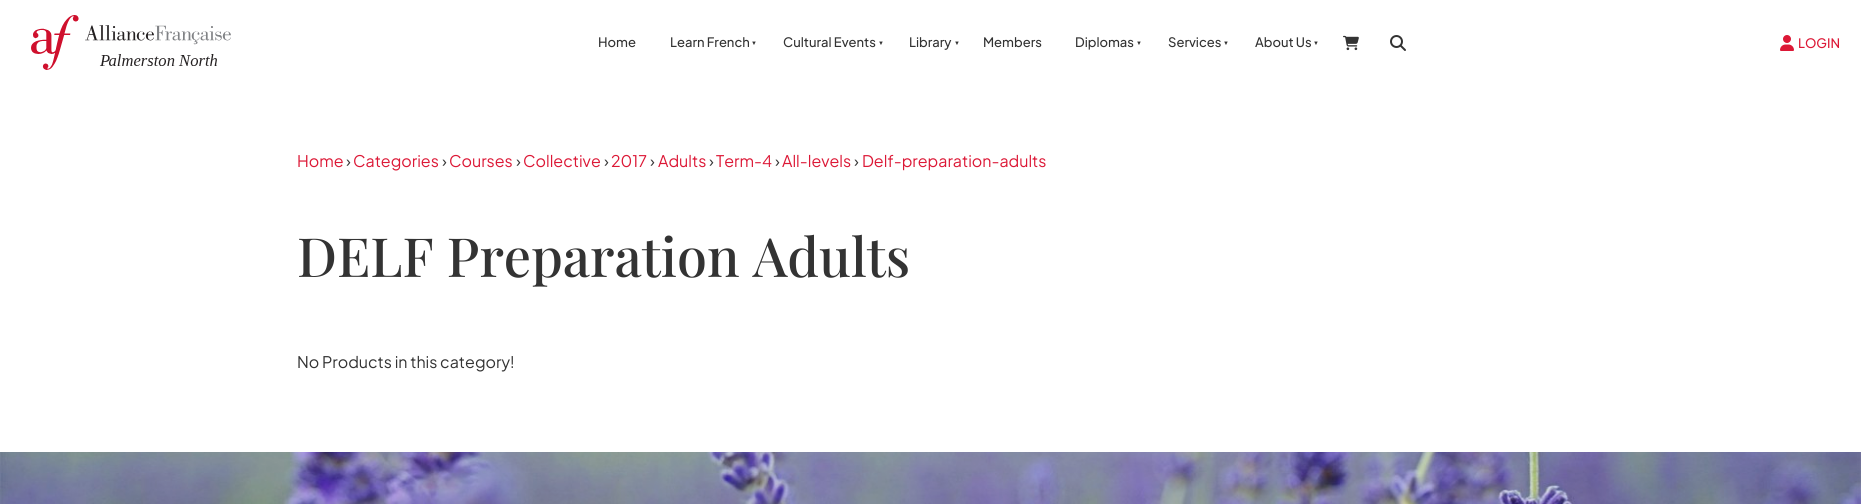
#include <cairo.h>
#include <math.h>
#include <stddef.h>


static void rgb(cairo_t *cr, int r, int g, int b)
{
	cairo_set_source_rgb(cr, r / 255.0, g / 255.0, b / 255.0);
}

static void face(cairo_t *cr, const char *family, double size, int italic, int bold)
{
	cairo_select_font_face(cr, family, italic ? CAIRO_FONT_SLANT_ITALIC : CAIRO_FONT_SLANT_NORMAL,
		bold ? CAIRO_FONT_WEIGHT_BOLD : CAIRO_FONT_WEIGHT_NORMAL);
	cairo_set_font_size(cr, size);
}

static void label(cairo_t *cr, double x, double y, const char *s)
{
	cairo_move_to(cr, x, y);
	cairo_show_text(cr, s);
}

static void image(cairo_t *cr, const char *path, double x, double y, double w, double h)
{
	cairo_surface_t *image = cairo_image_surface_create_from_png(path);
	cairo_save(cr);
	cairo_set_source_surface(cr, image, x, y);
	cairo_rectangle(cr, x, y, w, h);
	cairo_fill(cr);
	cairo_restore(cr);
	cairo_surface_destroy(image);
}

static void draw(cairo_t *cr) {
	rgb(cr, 255, 255, 255);
	cairo_paint(cr);
	image(cr, "image0.png", 31, 15, 200, 55);
	face(cr, "Plus Jakarta Sans Medium", 13, 0, 0);
	rgb(cr, 51, 51, 51);
	label(cr, 598, 47, "Home");
	label(cr, 670, 47, "Learn French");
	face(cr, "Liberation Sans", 6, 0, 0);
	label(cr, 751, 45, "▼");
	face(cr, "Plus Jakarta Sans Medium", 13, 0, 0);
	label(cr, 783, 47, "Cultural Events");
	face(cr, "Liberation Sans", 6, 0, 0);
	label(cr, 878, 45, "▼");
	face(cr, "Plus Jakarta Sans Medium", 13, 0, 0);
	label(cr, 909, 47, "Library");
	face(cr, "Liberation Sans", 6, 0, 0);
	label(cr, 954, 45, "▼");
	face(cr, "Plus Jakarta Sans Medium", 13, 0, 0);
	label(cr, 983, 47, "Members");
	label(cr, 1075, 47, "Diplomas");
	face(cr, "Liberation Sans", 6, 0, 0);
	label(cr, 1136, 45, "▼");
	face(cr, "Plus Jakarta Sans Medium", 13, 0, 0);
	label(cr, 1168, 47, "Services");
	face(cr, "Liberation Sans", 6, 0, 0);
	label(cr, 1223, 45, "▼");
	face(cr, "Plus Jakarta Sans Medium", 13, 0, 0);
	label(cr, 1255, 47, "About Us");
	face(cr, "Liberation Sans", 6, 0, 0);
	label(cr, 1313, 45, "▼");
	image(cr, "image1.png", 1343, 35, 16, 16);
	image(cr, "image2.png", 1390, 35, 16, 16);
	image(cr, "image3.png", 1780, 35, 14, 16);
	face(cr, "Plus Jakarta Sans Medium", 13, 0, 0);
	rgb(cr, 220, 24, 54);
	label(cr, 1798, 48, "LOGIN");
	face(cr, "Plus Jakarta Sans", 16, 0, 0);
	label(cr, 297, 167, "Home");
	rgb(cr, 51, 51, 51);
	label(cr, 346, 167, "›");
	rgb(cr, 220, 24, 54);
	label(cr, 353, 167, "Categories");
	rgb(cr, 51, 51, 51);
	label(cr, 442, 167, "›");
	rgb(cr, 220, 24, 54);
	label(cr, 449, 167, "Courses");
	rgb(cr, 51, 51, 51);
	label(cr, 516, 167, "›");
	rgb(cr, 220, 24, 54);
	label(cr, 523, 167, "Collective");
	rgb(cr, 51, 51, 51);
	label(cr, 604, 167, "›");
	rgb(cr, 220, 24, 54);
	label(cr, 611, 167, "2017");
	rgb(cr, 51, 51, 51);
	label(cr, 650, 167, "›");
	rgb(cr, 220, 24, 54);
	label(cr, 658, 167, "Adults");
	rgb(cr, 51, 51, 51);
	label(cr, 709, 167, "›");
	rgb(cr, 220, 24, 54);
	label(cr, 716, 167, "Term-4");
	rgb(cr, 51, 51, 51);
	label(cr, 775, 167, "›");
	rgb(cr, 220, 24, 54);
	label(cr, 782, 167, "All-levels");
	rgb(cr, 51, 51, 51);
	label(cr, 854, 167, "›");
	rgb(cr, 220, 24, 54);
	label(cr, 862, 167, "Delf-preparation-adults");
	face(cr, "Playfair Display Medium", 54, 0, 0);
	rgb(cr, 51, 51, 51);
	label(cr, 297, 277, "DELF Preparation Adults");
	face(cr, "Plus Jakarta Sans", 16, 0, 0);
	label(cr, 297, 368, "No Products in this category!");
	image(cr, "image4.png", 0, 452, 1861, 52);
}

int main(void) {
	cairo_surface_t *surface = cairo_image_surface_create(CAIRO_FORMAT_RGB24, 1861, 504);
	cairo_t *cr = cairo_create(surface);
	cairo_font_options_t *options = cairo_font_options_create();
	cairo_font_options_set_hint_metrics(options, CAIRO_HINT_METRICS_OFF);
	cairo_font_options_set_hint_style(options, CAIRO_HINT_STYLE_NONE);
	cairo_set_font_options(cr, options);
	cairo_set_miter_limit(cr, 4);
	draw(cr);
	cairo_surface_write_to_png(surface, "render.png");
	cairo_font_options_destroy(options);
	cairo_destroy(cr);
	cairo_surface_destroy(surface);
	return 0;
}
